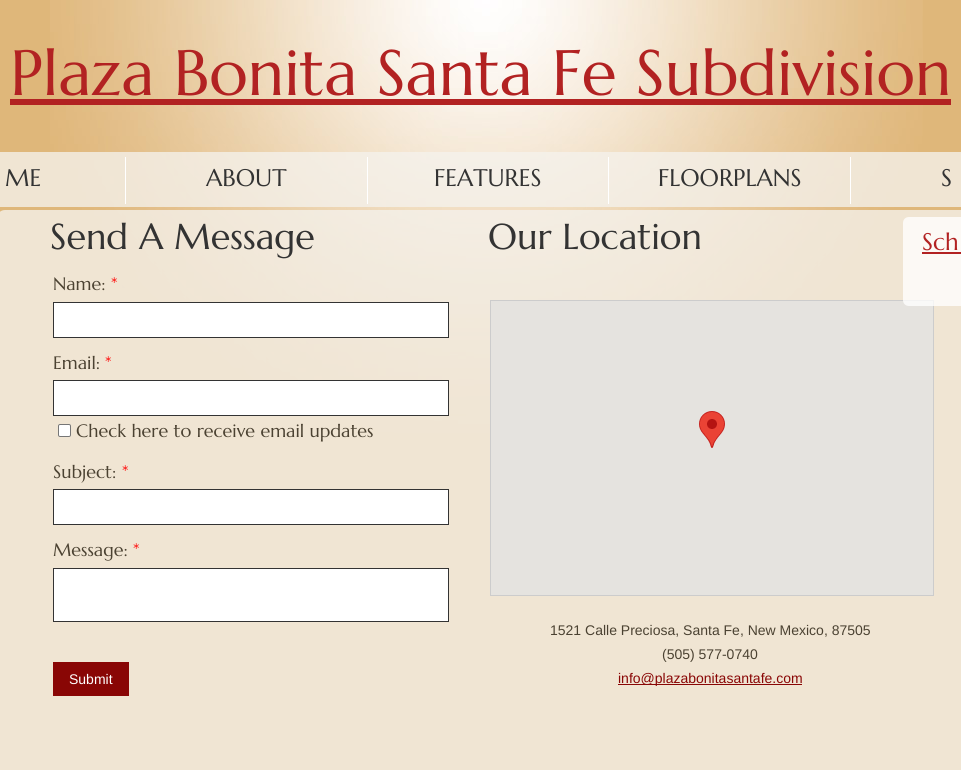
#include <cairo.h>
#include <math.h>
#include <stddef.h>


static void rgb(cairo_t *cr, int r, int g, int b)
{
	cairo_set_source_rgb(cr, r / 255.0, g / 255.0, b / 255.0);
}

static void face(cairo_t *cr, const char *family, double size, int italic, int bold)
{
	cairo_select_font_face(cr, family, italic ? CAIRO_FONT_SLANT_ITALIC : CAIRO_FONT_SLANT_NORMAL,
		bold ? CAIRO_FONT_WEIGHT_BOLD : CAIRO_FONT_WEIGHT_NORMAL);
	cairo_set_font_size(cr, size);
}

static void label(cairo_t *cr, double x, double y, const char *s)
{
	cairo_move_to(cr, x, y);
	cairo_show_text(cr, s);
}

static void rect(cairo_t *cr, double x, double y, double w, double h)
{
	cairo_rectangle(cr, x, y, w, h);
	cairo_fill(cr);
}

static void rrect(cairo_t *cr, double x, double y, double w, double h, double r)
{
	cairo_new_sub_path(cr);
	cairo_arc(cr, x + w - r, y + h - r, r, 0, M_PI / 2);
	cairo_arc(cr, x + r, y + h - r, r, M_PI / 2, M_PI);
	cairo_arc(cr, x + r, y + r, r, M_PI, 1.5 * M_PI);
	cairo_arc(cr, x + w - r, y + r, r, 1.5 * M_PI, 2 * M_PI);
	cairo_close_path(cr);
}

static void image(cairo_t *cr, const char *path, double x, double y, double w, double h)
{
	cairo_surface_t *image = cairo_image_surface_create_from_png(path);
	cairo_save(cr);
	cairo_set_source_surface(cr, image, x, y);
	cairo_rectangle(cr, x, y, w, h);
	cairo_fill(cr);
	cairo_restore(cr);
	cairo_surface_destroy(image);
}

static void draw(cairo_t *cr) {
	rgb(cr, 223, 183, 122);
	cairo_paint(cr);
	image(cr, "image0.png", 50, 0, 873, 433);
	face(cr, "Marcellus", 64, 0, 0);
	rgb(cr, 178, 34, 34);
	label(cr, 10, 95, "Plaza Bonita Santa Fe Subdivision");
	rect(cr, 10, 99, 941, 6);
	cairo_set_source_rgba(cr, 0.961, 0.953, 0.933, 0.77);
	rect(cr, 0, 152, 961, 55);
	rgb(cr, 255, 255, 255);
	rect(cr, 125, 157, 1, 47);
	face(cr, "Marcellus", 24, 0, 0);
	rgb(cr, 51, 51, 51);
	label(cr, 5, 186, "ME");
	rgb(cr, 255, 255, 255);
	rect(cr, 367, 157, 1, 47);
	rgb(cr, 51, 51, 51);
	label(cr, 206, 186, "ABOUT");
	rgb(cr, 255, 255, 255);
	rect(cr, 608, 157, 1, 47);
	rgb(cr, 51, 51, 51);
	label(cr, 434, 186, "FEATURES");
	rgb(cr, 255, 255, 255);
	rect(cr, 850, 157, 1, 47);
	rgb(cr, 51, 51, 51);
	label(cr, 658, 186, "FLOORPLANS");
	label(cr, 941, 186, "S");
	cairo_set_source_rgba(cr, 0.961, 0.953, 0.933, 0.77);
	rrect(cr, -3, 210, 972, 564, 8);
	cairo_fill(cr);
	face(cr, "Marcellus", 36, 0, 0);
	rgb(cr, 51, 51, 51);
	label(cr, 50, 249, "Send A Message");
	label(cr, 488, 249, "Our Location");
	cairo_rectangle(cr, 490.5, 300.5, 443, 295);
	rgb(cr, 204, 204, 204);
	cairo_set_line_width(cr, 1);
	cairo_stroke(cr);
	rgb(cr, 229, 227, 223);
	rect(cr, 491, 301, 442, 294);
	cairo_set_source_rgba(cr, 1, 1, 1, 0.77);
	cairo_new_path(cr);
	cairo_move_to(cr, 909, 217);
	cairo_line_to(cr, 961, 217);
	cairo_line_to(cr, 961, 306);
	cairo_line_to(cr, 909, 306);
	cairo_curve_to(cr, 905.5, 306, 903, 303.5, 903, 300);
	cairo_line_to(cr, 903, 223);
	cairo_curve_to(cr, 903, 219.5, 905.5, 217, 909, 217);
	cairo_close_path(cr);
	cairo_fill(cr);
	face(cr, "Marcellus", 24, 0, 0);
	rgb(cr, 178, 34, 34);
	label(cr, 922, 250, "Sch");
	rect(cr, 922, 252, 39, 2);
	face(cr, "Marcellus", 18, 0, 0);
	rgb(cr, 75, 66, 50);
	label(cr, 53, 290, "Name:");
	rgb(cr, 255, 0, 0);
	label(cr, 111, 290, "*");
	rgb(cr, 255, 255, 255);
	cairo_rectangle(cr, 53.5, 302.5, 395, 35);
	cairo_fill_preserve(cr);
	rgb(cr, 51, 51, 51);
	cairo_stroke(cr);
	rgb(cr, 75, 66, 50);
	label(cr, 53, 369, "Email:");
	rgb(cr, 255, 0, 0);
	label(cr, 105, 369, "*");
	rgb(cr, 255, 255, 255);
	cairo_rectangle(cr, 53.5, 380.5, 395, 35);
	cairo_fill_preserve(cr);
	rgb(cr, 51, 51, 51);
	cairo_stroke(cr);
	rgb(cr, 255, 255, 255);
	rrect(cr, 58.5, 424.5, 12, 12, 1.5);
	cairo_fill_preserve(cr);
	rgb(cr, 118, 118, 118);
	cairo_stroke(cr);
	rgb(cr, 75, 66, 50);
	label(cr, 76, 437, "Check here to receive email updates");
	label(cr, 53, 478, "Subject:");
	rgb(cr, 255, 0, 0);
	label(cr, 122, 478, "*");
	rgb(cr, 255, 255, 255);
	cairo_rectangle(cr, 53.5, 489.5, 395, 35);
	cairo_fill_preserve(cr);
	rgb(cr, 51, 51, 51);
	cairo_stroke(cr);
	rgb(cr, 75, 66, 50);
	label(cr, 53, 556, "Message:");
	rgb(cr, 255, 0, 0);
	label(cr, 133, 556, "*");
	rgb(cr, 255, 255, 255);
	cairo_rectangle(cr, 53.5, 568.5, 395, 53);
	cairo_fill_preserve(cr);
	rgb(cr, 51, 51, 51);
	cairo_stroke(cr);
	rgb(cr, 137, 6, 5);
	rect(cr, 53, 662, 76, 34);
	face(cr, "Liberation Sans", 14, 0, 0);
	rgb(cr, 255, 255, 255);
	label(cr, 69, 684, "Submit");
	image(cr, "image1.png", 699, 411, 26, 37);
	rgb(cr, 75, 66, 50);
	label(cr, 550, 635, "1521 Calle Preciosa, Santa Fe, New Mexico, 87505");
	label(cr, 662, 659, "(505) 577-0740");
	rgb(cr, 137, 6, 5);
	rect(cr, 618, 684, 184, 1);
	label(cr, 618, 683, "info@plazabonitasantafe.com");
}

int main(void) {
	cairo_surface_t *surface = cairo_image_surface_create(CAIRO_FORMAT_RGB24, 961, 770);
	cairo_t *cr = cairo_create(surface);
	cairo_font_options_t *options = cairo_font_options_create();
	cairo_font_options_set_hint_metrics(options, CAIRO_HINT_METRICS_OFF);
	cairo_font_options_set_hint_style(options, CAIRO_HINT_STYLE_NONE);
	cairo_set_font_options(cr, options);
	cairo_set_miter_limit(cr, 4);
	draw(cr);
	cairo_surface_write_to_png(surface, "render.png");
	cairo_font_options_destroy(options);
	cairo_destroy(cr);
	cairo_surface_destroy(surface);
	return 0;
}
